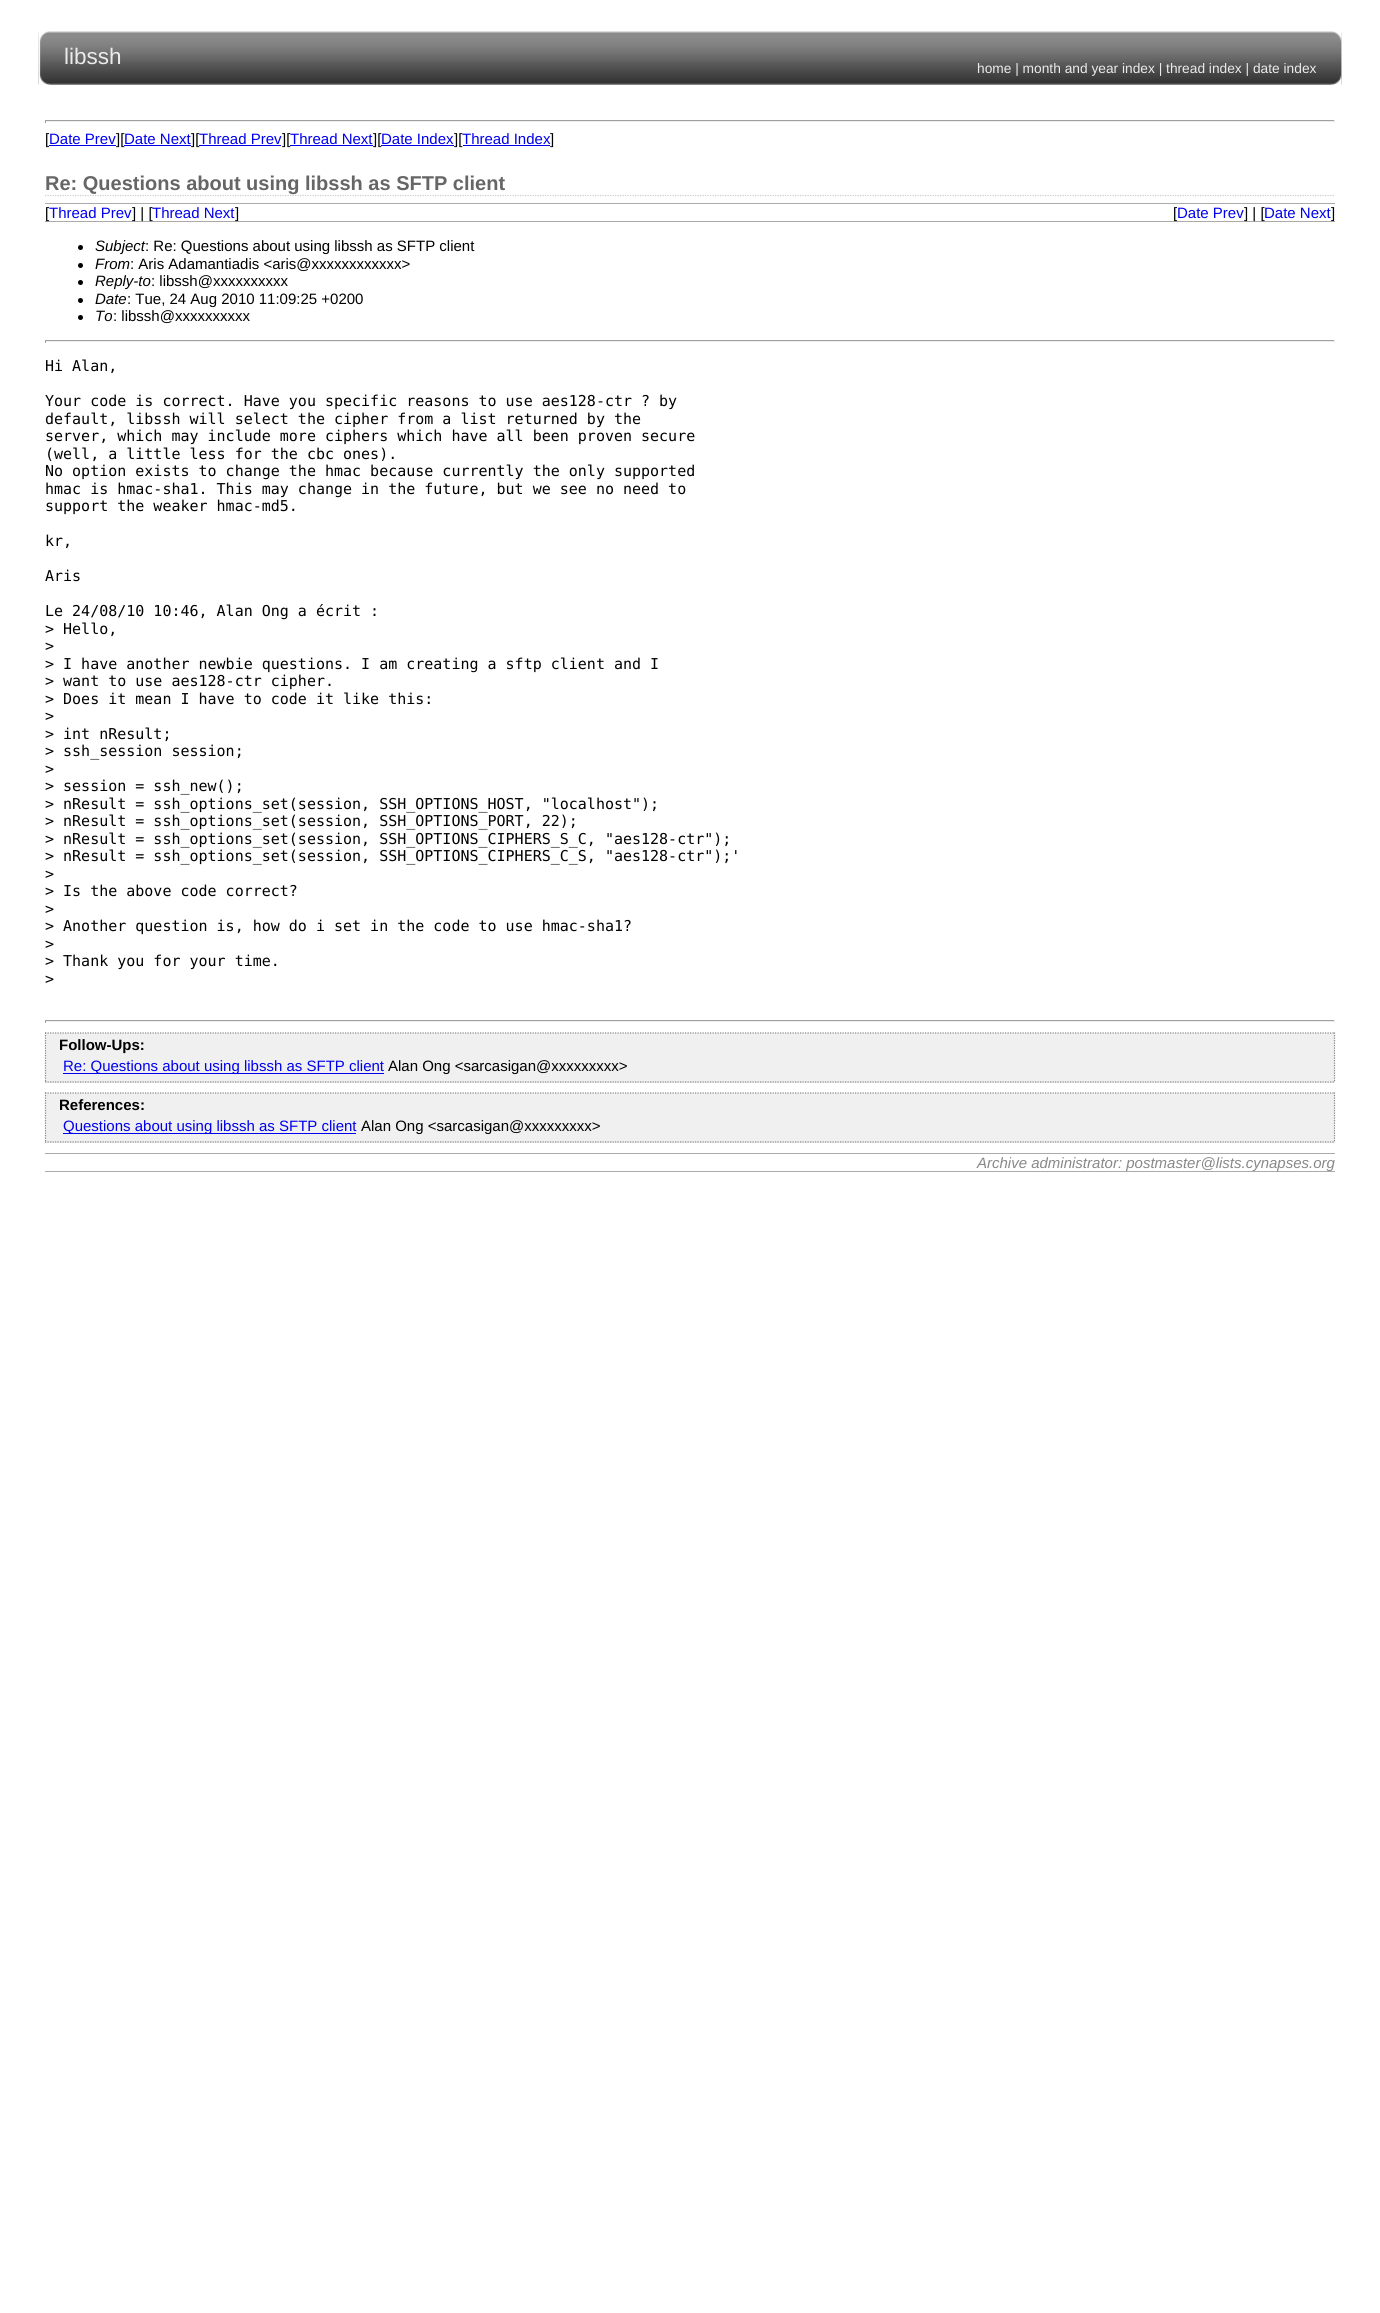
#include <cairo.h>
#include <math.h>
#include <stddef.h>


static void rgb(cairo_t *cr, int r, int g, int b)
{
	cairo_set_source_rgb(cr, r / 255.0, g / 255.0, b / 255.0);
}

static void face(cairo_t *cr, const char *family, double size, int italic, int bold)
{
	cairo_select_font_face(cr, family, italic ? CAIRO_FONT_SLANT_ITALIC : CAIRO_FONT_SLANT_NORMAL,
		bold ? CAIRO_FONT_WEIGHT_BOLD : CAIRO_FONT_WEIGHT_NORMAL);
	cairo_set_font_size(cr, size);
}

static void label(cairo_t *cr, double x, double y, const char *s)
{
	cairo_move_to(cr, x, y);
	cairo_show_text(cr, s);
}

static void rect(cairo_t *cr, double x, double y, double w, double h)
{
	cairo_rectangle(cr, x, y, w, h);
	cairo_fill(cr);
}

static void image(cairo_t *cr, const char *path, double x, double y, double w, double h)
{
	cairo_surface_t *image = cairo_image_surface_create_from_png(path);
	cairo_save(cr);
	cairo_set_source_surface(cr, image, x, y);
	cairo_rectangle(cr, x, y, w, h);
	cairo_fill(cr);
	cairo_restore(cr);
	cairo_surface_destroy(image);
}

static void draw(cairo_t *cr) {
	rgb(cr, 255, 255, 255);
	cairo_paint(cr);
	image(cr, "image0.png", 38, 31, 1304, 54);
	image(cr, "image1.png", 38, 31, 13, 54);
	face(cr, "Liberation Sans", 22.5, 0, 0);
	rgb(cr, 235, 235, 235);
	label(cr, 64, 64, "libssh");
	image(cr, "image2.png", 1331, 31, 11, 54);
	face(cr, "Liberation Sans", 13.75, 0, 0);
	label(cr, 977, 73, "home | month and year index | thread index | date index");
	rgb(cr, 159, 159, 159);
	rect(cr, 45, 120, 1290, 1);
	rgb(cr, 238, 238, 238);
	rect(cr, 1334, 120, 1, 3);
	rect(cr, 45, 121, 1290, 1);
	rgb(cr, 159, 159, 159);
	rect(cr, 45, 120, 1, 3);
	face(cr, "Liberation Sans", 15, 0, 0);
	rgb(cr, 0, 0, 0);
	label(cr, 45, 144, "[");
	rgb(cr, 0, 0, 238);
	label(cr, 49, 144, "Date Prev");
	rect(cr, 49, 145, 67, 1);
	rgb(cr, 0, 0, 0);
	label(cr, 116, 144, "][");
	rgb(cr, 0, 0, 238);
	label(cr, 124, 144, "Date Next");
	rect(cr, 124, 145, 67, 1);
	rgb(cr, 0, 0, 0);
	label(cr, 191, 144, "][");
	rgb(cr, 0, 0, 238);
	label(cr, 199, 144, "Thread Prev");
	rect(cr, 199, 145, 82, 1);
	rgb(cr, 0, 0, 0);
	label(cr, 282, 144, "][");
	rgb(cr, 0, 0, 238);
	label(cr, 290, 144, "Thread Next");
	rect(cr, 290, 145, 83, 1);
	rgb(cr, 0, 0, 0);
	label(cr, 373, 144, "][");
	rgb(cr, 0, 0, 238);
	label(cr, 381, 144, "Date Index");
	rect(cr, 381, 145, 73, 1);
	rgb(cr, 0, 0, 0);
	label(cr, 454, 144, "][");
	rgb(cr, 0, 0, 238);
	label(cr, 462, 144, "Thread Index");
	rect(cr, 463, 145, 87, 1);
	rgb(cr, 0, 0, 0);
	label(cr, 550, 144, "]");
	cairo_new_path(cr);
	cairo_move_to(cr, 45, 195.5);
	cairo_line_to(cr, 1335, 195.5);
	rgb(cr, 204, 204, 204);
	cairo_set_line_width(cr, 1.2);
	cairo_set_dash(cr, (double[]){1.25, 1.25}, 2, 0);
	cairo_stroke(cr);
	face(cr, "Liberation Sans", 20, 0, 1);
	rgb(cr, 102, 102, 102);
	label(cr, 45, 190, "Re: Questions about using libssh as SFTP client");
	rgb(cr, 170, 170, 170);
	rect(cr, 45, 203, 1290, 1);
	rect(cr, 45, 221, 1290, 1);
	face(cr, "Liberation Sans", 15, 0, 0);
	rgb(cr, 0, 0, 0);
	label(cr, 45, 218, "[");
	rgb(cr, 0, 0, 238);
	label(cr, 49, 218, "Thread Prev");
	rgb(cr, 0, 0, 0);
	label(cr, 132, 218, "] | [");
	rgb(cr, 0, 0, 238);
	label(cr, 152, 218, "Thread Next");
	rgb(cr, 0, 0, 0);
	label(cr, 235, 218, "]");
	label(cr, 1173, 218, "[");
	rgb(cr, 0, 0, 238);
	label(cr, 1177, 218, "Date Prev");
	rgb(cr, 0, 0, 0);
	label(cr, 1244, 218, "] | [");
	rgb(cr, 0, 0, 238);
	label(cr, 1264, 218, "Date Next");
	rgb(cr, 0, 0, 0);
	label(cr, 1331, 218, "]");
	cairo_new_path(cr);
	cairo_arc(cr, 80.5, 247.5, 2.5, 0, 2 * M_PI);
	cairo_fill(cr);
	face(cr, "Liberation Sans", 15, 1, 0);
	label(cr, 95, 251, "Subject");
	face(cr, "Liberation Sans", 15, 0, 0);
	label(cr, 145, 251, ": Re: Questions about using libssh as SFTP client");
	cairo_new_path(cr);
	cairo_arc(cr, 80.5, 265.5, 2.5, 0, 2 * M_PI);
	cairo_fill(cr);
	face(cr, "Liberation Sans", 15, 1, 0);
	label(cr, 95, 269, "From");
	face(cr, "Liberation Sans", 15, 0, 0);
	label(cr, 130, 269, ": Aris Adamantiadis <aris@xxxxxxxxxxxx>");
	cairo_new_path(cr);
	cairo_arc(cr, 80.5, 282.5, 2.5, 0, 2 * M_PI);
	cairo_fill(cr);
	face(cr, "Liberation Sans", 15, 1, 0);
	label(cr, 95, 286, "Reply-to");
	face(cr, "Liberation Sans", 15, 0, 0);
	label(cr, 151, 286, ": libssh@xxxxxxxxxx");
	cairo_new_path(cr);
	cairo_arc(cr, 80.5, 300.5, 2.5, 0, 2 * M_PI);
	cairo_fill(cr);
	face(cr, "Liberation Sans", 15, 1, 0);
	label(cr, 95, 304, "Date");
	face(cr, "Liberation Sans", 15, 0, 0);
	label(cr, 127, 304, ": Tue, 24 Aug 2010 11:09:25 +0200");
	cairo_new_path(cr);
	cairo_arc(cr, 80.5, 317.5, 2.5, 0, 2 * M_PI);
	cairo_fill(cr);
	face(cr, "Liberation Sans", 15, 1, 0);
	label(cr, 95, 321, "To");
	face(cr, "Liberation Sans", 15, 0, 0);
	label(cr, 113, 321, ": libssh@xxxxxxxxxx");
	rgb(cr, 159, 159, 159);
	rect(cr, 45, 340, 1290, 1);
	rgb(cr, 238, 238, 238);
	rect(cr, 1334, 340, 1, 3);
	rect(cr, 45, 341, 1290, 1);
	rgb(cr, 159, 159, 159);
	rect(cr, 45, 340, 1, 3);
	face(cr, "DejaVu Sans Mono", 15, 0, 0);
	rgb(cr, 0, 0, 0);
	label(cr, 45, 371, "Hi Alan,");
	label(cr, 45, 406, "Your code is correct. Have you specific reasons to use aes128-ctr ? by");
	label(cr, 45, 424, "default, libssh will select the cipher from a list returned by the");
	label(cr, 45, 441, "server, which may include more ciphers which have all been proven secure");
	label(cr, 45, 459, "(well, a little less for the cbc ones).");
	label(cr, 45, 476, "No option exists to change the hmac because currently the only supported");
	label(cr, 45, 494, "hmac is hmac-sha1. This may change in the future, but we see no need to");
	label(cr, 45, 511, "support the weaker hmac-md5.");
	label(cr, 45, 546, "kr,");
	label(cr, 45, 581, "Aris");
	label(cr, 45, 616, "Le 24/08/10 10:46, Alan Ong a écrit :");
	label(cr, 45, 634, "> Hello,");
	label(cr, 45, 651, ">");
	label(cr, 45, 669, "> I have another newbie questions. I am creating a sftp client and I");
	label(cr, 45, 686, "> want to use aes128-ctr cipher.");
	label(cr, 45, 704, "> Does it mean I have to code it like this:");
	label(cr, 45, 721, ">");
	label(cr, 45, 739, "> int nResult;");
	label(cr, 45, 756, "> ssh_session session;");
	label(cr, 45, 774, ">");
	label(cr, 45, 791, "> session = ssh_new();");
	label(cr, 45, 809, "> nResult = ssh_options_set(session, SSH_OPTIONS_HOST, \"localhost\");");
	label(cr, 45, 826, "> nResult = ssh_options_set(session, SSH_OPTIONS_PORT, 22);");
	label(cr, 45, 844, "> nResult = ssh_options_set(session, SSH_OPTIONS_CIPHERS_S_C, \"aes128-ctr\");");
	label(cr, 45, 861, "> nResult = ssh_options_set(session, SSH_OPTIONS_CIPHERS_C_S, \"aes128-ctr\");'");
	label(cr, 45, 879, ">");
	label(cr, 45, 896, "> Is the above code correct?");
	label(cr, 45, 914, ">");
	label(cr, 45, 931, "> Another question is, how do i set in the code to use hmac-sha1?");
	label(cr, 45, 949, ">");
	label(cr, 45, 966, "> Thank you for your time.");
	label(cr, 45, 984, ">");
	rgb(cr, 159, 159, 159);
	rect(cr, 45, 1020, 1290, 1);
	rgb(cr, 238, 238, 238);
	rect(cr, 1334, 1020, 1, 3);
	rect(cr, 45, 1021, 1290, 1);
	rgb(cr, 159, 159, 159);
	rect(cr, 45, 1020, 1, 3);
	rgb(cr, 240, 240, 240);
	rect(cr, 45, 1033, 1290, 50);
	cairo_new_path(cr);
	cairo_move_to(cr, 45, 1033);
	cairo_line_to(cr, 1335, 1033);
	rgb(cr, 136, 136, 136);
	cairo_stroke(cr);
	cairo_new_path(cr);
	cairo_move_to(cr, 1334.5, 1032.5);
	cairo_line_to(cr, 1334.5, 1082.5);
	cairo_stroke(cr);
	cairo_new_path(cr);
	cairo_move_to(cr, 45, 1082);
	cairo_line_to(cr, 1335, 1082);
	cairo_stroke(cr);
	cairo_new_path(cr);
	cairo_move_to(cr, 45.5, 1032.5);
	cairo_line_to(cr, 45.5, 1082.5);
	cairo_stroke(cr);
	face(cr, "Liberation Sans", 15, 0, 1);
	rgb(cr, 0, 0, 0);
	label(cr, 59, 1050, "Follow-Ups:");
	rgb(cr, 0, 0, 238);
	rect(cr, 63, 1073, 321, 1);
	face(cr, "Liberation Sans", 15, 0, 0);
	label(cr, 63, 1071, "Re: Questions about using libssh as SFTP client");
	rgb(cr, 0, 0, 0);
	label(cr, 388, 1071, "Alan Ong <sarcasigan@xxxxxxxxx>");
	rgb(cr, 240, 240, 240);
	rect(cr, 45, 1093, 1290, 50);
	cairo_new_path(cr);
	cairo_move_to(cr, 45, 1093);
	cairo_line_to(cr, 1335, 1093);
	rgb(cr, 136, 136, 136);
	cairo_stroke(cr);
	cairo_new_path(cr);
	cairo_move_to(cr, 1334.5, 1092.5);
	cairo_line_to(cr, 1334.5, 1142.5);
	cairo_stroke(cr);
	cairo_new_path(cr);
	cairo_move_to(cr, 45, 1142);
	cairo_line_to(cr, 1335, 1142);
	cairo_stroke(cr);
	cairo_new_path(cr);
	cairo_move_to(cr, 45.5, 1092.5);
	cairo_line_to(cr, 45.5, 1142.5);
	cairo_stroke(cr);
	face(cr, "Liberation Sans", 15, 0, 1);
	rgb(cr, 0, 0, 0);
	label(cr, 59, 1110, "References:");
	rgb(cr, 0, 0, 238);
	rect(cr, 63, 1133, 293, 1);
	face(cr, "Liberation Sans", 15, 0, 0);
	label(cr, 63, 1131, "Questions about using libssh as SFTP client");
	rgb(cr, 0, 0, 0);
	label(cr, 361, 1131, "Alan Ong <sarcasigan@xxxxxxxxx>");
	rgb(cr, 170, 170, 170);
	rect(cr, 45, 1153, 1290, 1);
	rect(cr, 45, 1171, 1290, 1);
	face(cr, "Liberation Sans", 15, 1, 0);
	rgb(cr, 136, 136, 136);
	label(cr, 977, 1168, "Archive administrator: postmaster@lists.cynapses.org");
}

int main(void) {
	cairo_surface_t *surface = cairo_image_surface_create(CAIRO_FORMAT_RGB24, 1380, 2313);
	cairo_t *cr = cairo_create(surface);
	cairo_font_options_t *options = cairo_font_options_create();
	cairo_font_options_set_hint_metrics(options, CAIRO_HINT_METRICS_OFF);
	cairo_font_options_set_hint_style(options, CAIRO_HINT_STYLE_NONE);
	cairo_set_font_options(cr, options);
	cairo_set_miter_limit(cr, 4);
	draw(cr);
	cairo_surface_write_to_png(surface, "render.png");
	cairo_font_options_destroy(options);
	cairo_destroy(cr);
	cairo_surface_destroy(surface);
	return 0;
}
